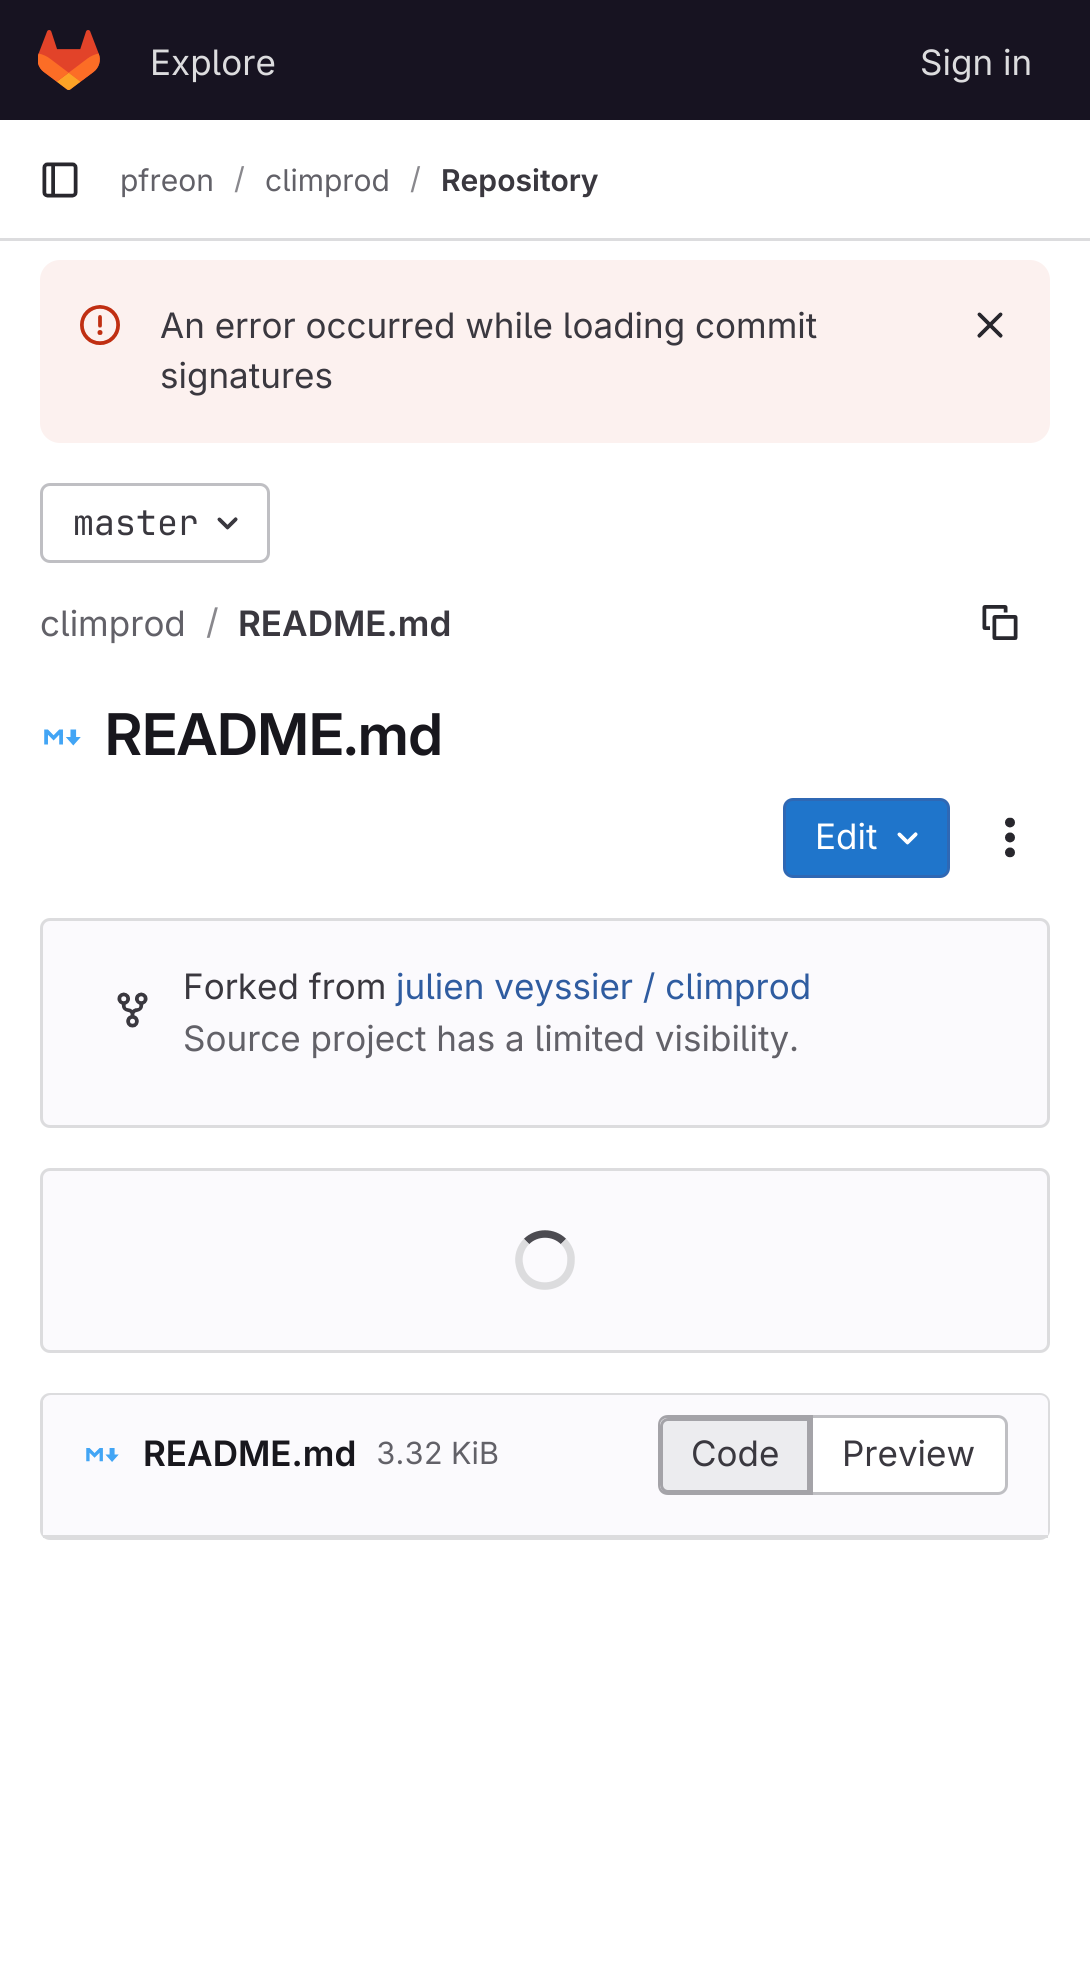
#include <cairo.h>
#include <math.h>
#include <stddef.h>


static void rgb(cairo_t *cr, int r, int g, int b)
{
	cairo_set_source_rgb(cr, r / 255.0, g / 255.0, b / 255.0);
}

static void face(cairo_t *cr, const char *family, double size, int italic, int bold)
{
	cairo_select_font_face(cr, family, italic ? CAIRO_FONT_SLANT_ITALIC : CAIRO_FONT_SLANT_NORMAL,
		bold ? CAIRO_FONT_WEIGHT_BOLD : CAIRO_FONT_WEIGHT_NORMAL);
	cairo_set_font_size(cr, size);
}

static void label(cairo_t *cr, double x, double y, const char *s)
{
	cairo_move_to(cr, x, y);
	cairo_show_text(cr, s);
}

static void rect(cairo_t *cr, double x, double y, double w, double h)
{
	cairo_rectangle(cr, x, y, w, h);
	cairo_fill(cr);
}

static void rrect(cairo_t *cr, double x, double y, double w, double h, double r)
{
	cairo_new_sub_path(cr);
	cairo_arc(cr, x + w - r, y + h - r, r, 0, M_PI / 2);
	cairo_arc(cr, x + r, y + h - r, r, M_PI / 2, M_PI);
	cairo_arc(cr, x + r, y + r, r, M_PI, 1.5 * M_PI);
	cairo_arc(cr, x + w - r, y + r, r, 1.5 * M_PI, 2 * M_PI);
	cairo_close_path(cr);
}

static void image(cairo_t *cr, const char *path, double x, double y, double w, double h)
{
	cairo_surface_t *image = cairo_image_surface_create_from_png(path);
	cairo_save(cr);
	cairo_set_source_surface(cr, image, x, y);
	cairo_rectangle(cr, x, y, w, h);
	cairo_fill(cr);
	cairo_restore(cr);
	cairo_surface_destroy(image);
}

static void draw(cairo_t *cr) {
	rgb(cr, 255, 255, 255);
	cairo_paint(cr);
	rgb(cr, 23, 19, 33);
	rect(cr, 0, 0, 1090, 120);
	image(cr, "image0.png", 38, 30, 62, 60);
	face(cr, "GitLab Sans", 35, 0, 0);
	rgb(cr, 220, 220, 222);
	label(cr, 150, 75, "Explore");
	label(cr, 920, 75, "Sign in");
	rect(cr, 0, 238, 1090, 3);
	image(cr, "image1.png", 42, 162, 36, 36);
	face(cr, "GitLab Sans", 30, 0, 0);
	rgb(cr, 98, 97, 104);
	label(cr, 120, 191, "pfreon");
	rgb(cr, 137, 136, 141);
	label(cr, 234, 189, "/");
	rgb(cr, 98, 97, 104);
	label(cr, 265, 191, "climprod");
	rgb(cr, 137, 136, 141);
	label(cr, 410, 189, "/");
	face(cr, "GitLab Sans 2 SemiBold", 30, 0, 0);
	rgb(cr, 58, 56, 63);
	label(cr, 441, 191, "Repository");
	rgb(cr, 252, 241, 239);
	rrect(cr, 40, 260, 1010, 183, 20);
	cairo_fill(cr);
	image(cr, "image2.png", 80, 305, 40, 40);
	face(cr, "GitLab Sans", 35, 0, 0);
	rgb(cr, 58, 56, 63);
	label(cr, 160, 338, "An error occurred while loading commit");
	label(cr, 160, 388, "signatures");
	image(cr, "image3.png", 977, 312, 26, 26);
	rrect(cr, 41.5, 484.5, 227, 77, 8.5);
	rgb(cr, 191, 191, 195);
	cairo_set_line_width(cr, 3);
	cairo_stroke(cr);
	face(cr, "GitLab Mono", 35, 0, 0);
	rgb(cr, 58, 56, 63);
	label(cr, 73, 535, "master");
	image(cr, "image4.png", 217, 517, 21, 13);
	face(cr, "GitLab Sans", 35, 0, 0);
	rgb(cr, 98, 97, 104);
	label(cr, 40, 636, "climprod");
	rgb(cr, 137, 136, 141);
	label(cr, 206, 634, "/");
	face(cr, "GitLab Sans 2 SemiBold", 35, 0, 0);
	rgb(cr, 58, 56, 63);
	label(cr, 238, 636, "README.md");
	image(cr, "image5.png", 982, 605, 36, 35);
	image(cr, "image6.png", 44, 729, 37, 17);
	face(cr, "GitLab Sans SemiBold", 57.5, 0, 0);
	rgb(cr, 24, 23, 29);
	label(cr, 105, 755, "README.md");
	rgb(cr, 31, 117, 203);
	rrect(cr, 784.5, 799.5, 164, 77, 8.5);
	cairo_fill_preserve(cr);
	rgb(cr, 47, 104, 180);
	cairo_stroke(cr);
	face(cr, "GitLab Sans", 35, 0, 0);
	rgb(cr, 255, 255, 255);
	label(cr, 815, 849, "Edit");
	image(cr, "image7.png", 897, 832, 21, 13);
	image(cr, "image8.png", 1005, 817, 10, 41);
	rgb(cr, 251, 250, 253);
	rrect(cr, 41.5, 919.5, 1007, 207, 8.5);
	cairo_fill_preserve(cr);
	rgb(cr, 220, 220, 222);
	cairo_stroke(cr);
	image(cr, "image9.png", 117, 992, 31, 36);
	rgb(cr, 58, 56, 63);
	label(cr, 183, 999, "Forked from");
	rgb(cr, 47, 92, 160);
	label(cr, 396, 999, "julien veyssier / climprod");
	rgb(cr, 98, 97, 104);
	label(cr, 183, 1051, "Source project has a limited visibility.");
	rgb(cr, 251, 250, 253);
	rrect(cr, 41.5, 1169.5, 1007, 182, 8.5);
	cairo_fill_preserve(cr);
	rgb(cr, 220, 220, 222);
	cairo_stroke(cr);
	cairo_new_path(cr);
	cairo_move_to(cr, 526.5, 1241.5);
	cairo_curve_to(cr, 536.5, 1231.5, 553.5, 1231.5, 563.5, 1241.5);
	rgb(cr, 76, 75, 81);
	cairo_set_line_width(cr, 7.5);
	cairo_stroke(cr);
	cairo_new_path(cr);
	cairo_move_to(cr, 563.5, 1241.5);
	cairo_curve_to(cr, 568.5, 1246.5, 571.5, 1253, 571, 1260);
	cairo_curve_to(cr, 571, 1291.5, 525.5, 1296, 519.5, 1265);
	cairo_curve_to(cr, 517.5, 1256.5, 520.5, 1247.5, 526.5, 1241.5);
	rgb(cr, 220, 220, 222);
	cairo_stroke(cr);
	rrect(cr, 41.5, 1394.5, 1007, 144, 8.5);
	cairo_set_line_width(cr, 3);
	cairo_stroke(cr);
	rgb(cr, 251, 250, 253);
	cairo_new_path(cr);
	cairo_move_to(cr, 51, 1395);
	cairo_line_to(cr, 1040, 1395);
	cairo_curve_to(cr, 1044.5, 1395, 1048, 1398.5, 1048, 1403);
	cairo_line_to(cr, 1048, 1538);
	cairo_line_to(cr, 43, 1538);
	cairo_line_to(cr, 43, 1403);
	cairo_curve_to(cr, 43, 1398.5, 46.5, 1395, 51, 1395);
	cairo_close_path(cr);
	cairo_fill(cr);
	rgb(cr, 220, 220, 222);
	rect(cr, 43, 1535, 1005, 3);
	image(cr, "image10.png", 86, 1448, 33, 14);
	face(cr, "GitLab Sans 2 SemiBold", 35, 0, 0);
	rgb(cr, 24, 23, 29);
	label(cr, 143, 1466, "README.md");
	face(cr, "GitLab Sans", 30.5, 0, 0);
	rgb(cr, 98, 97, 104);
	label(cr, 376, 1464, "3.32 KiB");
	rgb(cr, 236, 236, 239);
	cairo_new_path(cr);
	cairo_move_to(cr, 668, 1419.5);
	cairo_line_to(cr, 808.5, 1419.5);
	cairo_line_to(cr, 808.5, 1491.5);
	cairo_line_to(cr, 668, 1491.5);
	cairo_curve_to(cr, 664.5, 1491.5, 661.5, 1488.5, 661.5, 1485);
	cairo_line_to(cr, 661.5, 1426);
	cairo_curve_to(cr, 661.5, 1422.5, 664.5, 1419.5, 668, 1419.5);
	cairo_close_path(cr);
	cairo_fill_preserve(cr);
	rgb(cr, 164, 163, 168);
	cairo_stroke(cr);
	cairo_set_fill_rule(cr, CAIRO_FILL_RULE_EVEN_ODD);
	cairo_new_path(cr);
	cairo_move_to(cr, 668, 1415);
	cairo_line_to(cr, 810, 1415);
	cairo_line_to(cr, 810, 1495);
	cairo_line_to(cr, 668, 1495);
	cairo_curve_to(cr, 662, 1495, 658, 1491, 658, 1485);
	cairo_line_to(cr, 658, 1425);
	cairo_curve_to(cr, 658, 1419, 662, 1415, 668, 1415);
	cairo_close_path(cr);
	cairo_move_to(cr, 668, 1418);
	cairo_line_to(cr, 810, 1418);
	cairo_line_to(cr, 810, 1492);
	cairo_line_to(cr, 668, 1492);
	cairo_curve_to(cr, 663, 1492, 660, 1489, 660, 1485);
	cairo_line_to(cr, 660, 1425);
	cairo_curve_to(cr, 660, 1421, 663, 1418, 668, 1418);
	cairo_close_path(cr);
	cairo_fill(cr);
	face(cr, "GitLab Sans", 35, 0, 0);
	rgb(cr, 58, 56, 63);
	label(cr, 691, 1466, "Code");
	rgb(cr, 255, 255, 255);
	cairo_new_path(cr);
	cairo_move_to(cr, 813, 1418);
	cairo_line_to(cr, 997, 1418);
	cairo_curve_to(cr, 1001.5, 1418, 1005, 1421.5, 1005, 1426);
	cairo_line_to(cr, 1005, 1485);
	cairo_curve_to(cr, 1005, 1489.5, 1001.5, 1493, 997, 1493);
	cairo_line_to(cr, 813, 1493);
	cairo_close_path(cr);
	cairo_fill(cr);
	rgb(cr, 191, 191, 195);
	cairo_new_path(cr);
	cairo_move_to(cr, 812, 1415);
	cairo_line_to(cr, 998, 1415);
	cairo_curve_to(cr, 1003, 1415, 1008, 1419, 1008, 1425);
	cairo_line_to(cr, 1008, 1485);
	cairo_curve_to(cr, 1008, 1491, 1003, 1495, 998, 1495);
	cairo_line_to(cr, 812, 1495);
	cairo_close_path(cr);
	cairo_move_to(cr, 812, 1418);
	cairo_line_to(cr, 998, 1418);
	cairo_curve_to(cr, 1002, 1418, 1005, 1421, 1005, 1425);
	cairo_line_to(cr, 1005, 1485);
	cairo_curve_to(cr, 1005, 1489, 1002, 1492, 998, 1492);
	cairo_line_to(cr, 812, 1492);
	cairo_close_path(cr);
	cairo_fill(cr);
	rgb(cr, 164, 163, 168);
	rect(cr, 810, 1415, 3, 80);
	rgb(cr, 58, 56, 63);
	label(cr, 842, 1466, "Preview");
}

int main(void) {
	cairo_surface_t *surface = cairo_image_surface_create(CAIRO_FORMAT_RGB24, 1090, 1969);
	cairo_t *cr = cairo_create(surface);
	cairo_font_options_t *options = cairo_font_options_create();
	cairo_font_options_set_hint_metrics(options, CAIRO_HINT_METRICS_OFF);
	cairo_font_options_set_hint_style(options, CAIRO_HINT_STYLE_NONE);
	cairo_set_font_options(cr, options);
	cairo_set_miter_limit(cr, 4);
	draw(cr);
	cairo_surface_write_to_png(surface, "render.png");
	cairo_font_options_destroy(options);
	cairo_destroy(cr);
	cairo_surface_destroy(surface);
	return 0;
}
